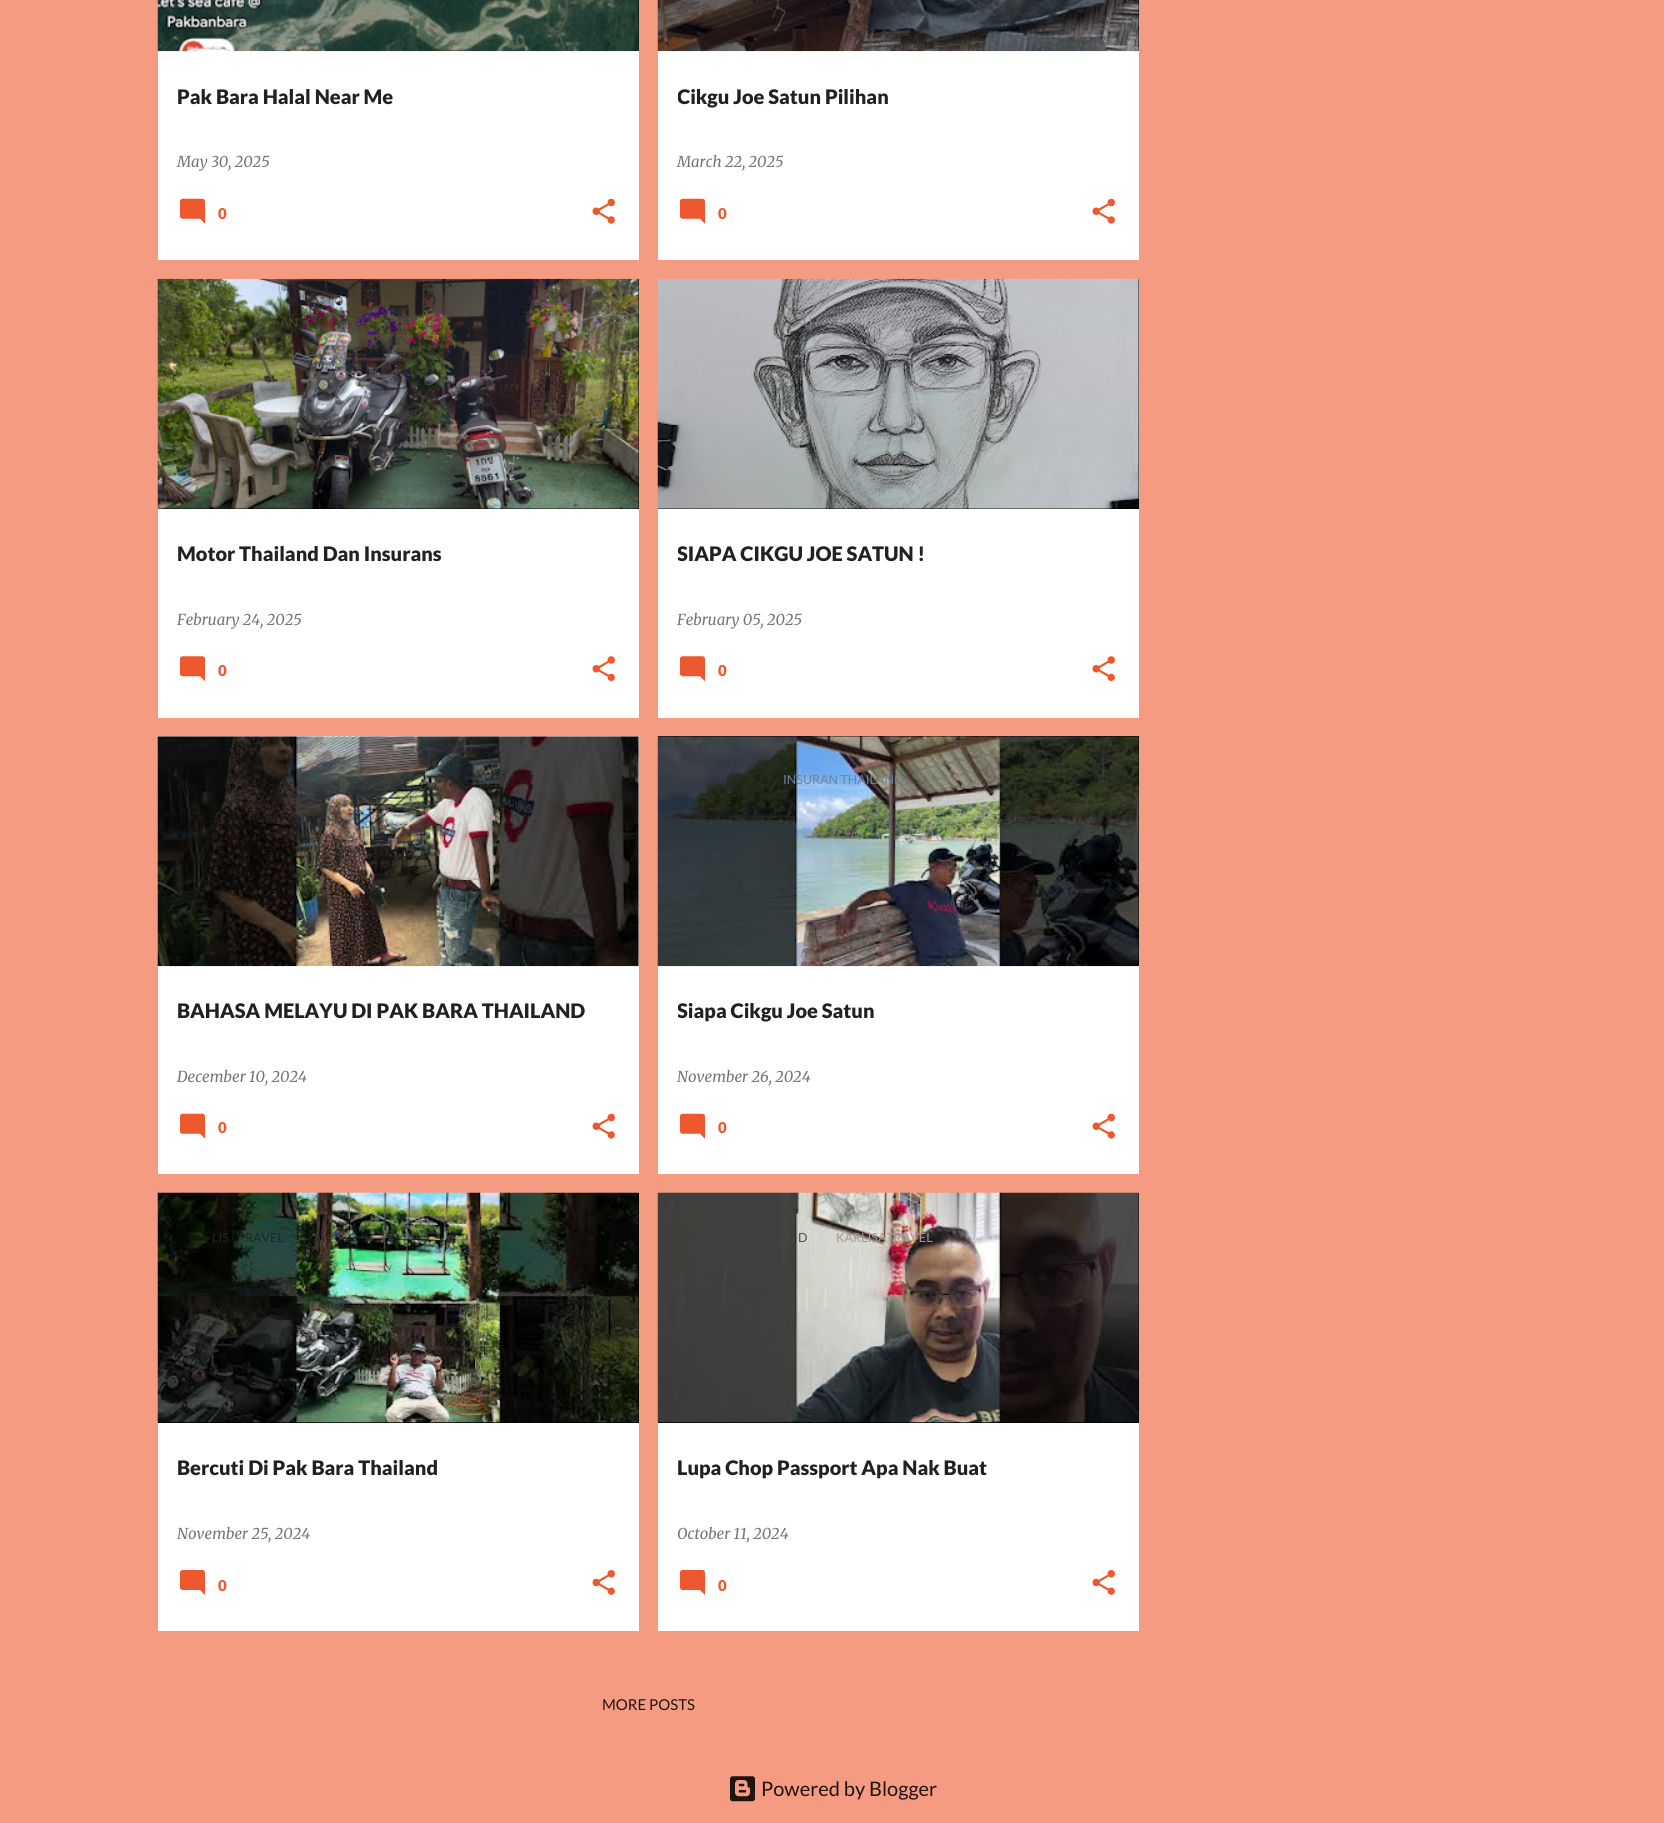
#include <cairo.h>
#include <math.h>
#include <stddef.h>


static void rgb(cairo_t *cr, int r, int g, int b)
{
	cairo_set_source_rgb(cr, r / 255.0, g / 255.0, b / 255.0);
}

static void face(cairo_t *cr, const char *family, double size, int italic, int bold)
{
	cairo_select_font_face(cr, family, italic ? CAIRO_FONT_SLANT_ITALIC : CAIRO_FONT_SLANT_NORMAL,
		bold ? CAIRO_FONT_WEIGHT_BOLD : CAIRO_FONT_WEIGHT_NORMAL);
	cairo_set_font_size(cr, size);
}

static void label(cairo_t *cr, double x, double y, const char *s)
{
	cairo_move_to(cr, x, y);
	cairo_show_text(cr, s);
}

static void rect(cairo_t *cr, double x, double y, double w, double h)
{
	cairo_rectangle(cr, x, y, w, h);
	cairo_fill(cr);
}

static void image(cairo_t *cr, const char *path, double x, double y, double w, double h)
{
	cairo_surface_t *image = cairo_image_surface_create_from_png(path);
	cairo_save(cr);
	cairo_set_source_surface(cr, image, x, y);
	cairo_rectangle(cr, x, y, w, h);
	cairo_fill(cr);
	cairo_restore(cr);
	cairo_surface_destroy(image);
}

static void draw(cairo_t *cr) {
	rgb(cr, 245, 155, 130);
	cairo_paint(cr);
	rgb(cr, 255, 255, 255);
	rect(cr, 158, 51, 481, 209);
	rgb(cr, 0, 0, 0);
	rect(cr, 638, 0, 1, 51);
	image(cr, "image0.png", 157, 0, 482, 52);
	face(cr, "Lato Black", 20, 0, 0);
	rgb(cr, 33, 33, 33);
	label(cr, 177, 104, "Pak Bara Halal Near Me");
	face(cr, "Merriweather Light", 15, 1, 0);
	rgb(cr, 117, 117, 117);
	label(cr, 177, 167, "May 30, 2025");
	image(cr, "image1.png", 180, 198, 25, 26);
	face(cr, "Lato Black", 15, 0, 0);
	rgb(cr, 238, 88, 46);
	label(cr, 218, 219, "0");
	image(cr, "image2.png", 592, 198, 23, 26);
	rgb(cr, 255, 255, 255);
	rect(cr, 658, 51, 481, 209);
	rgb(cr, 0, 0, 0);
	rect(cr, 1138, 0, 1, 51);
	image(cr, "image3.png", 657, 0, 482, 52);
	cairo_save(cr);
	cairo_rectangle(cr, 678, 81, 441, 60);
	cairo_clip(cr);
	face(cr, "Lato Black", 20, 0, 0);
	rgb(cr, 33, 33, 33);
	label(cr, 677, 104, "Cikgu Joe Satun Pilihan");
	cairo_restore(cr);
	face(cr, "Merriweather Light", 15, 1, 0);
	rgb(cr, 117, 117, 117);
	label(cr, 677, 167, "March 22, 2025");
	image(cr, "image1.png", 680, 198, 25, 26);
	face(cr, "Lato Black", 15, 0, 0);
	rgb(cr, 238, 88, 46);
	label(cr, 718, 219, "0");
	image(cr, "image2.png", 1092, 198, 23, 26);
	rgb(cr, 255, 255, 255);
	rect(cr, 158, 509, 481, 209);
	rgb(cr, 0, 0, 0);
	rect(cr, 158, 279, 481, 230);
	image(cr, "image4.png", 157, 278, 482, 231);
	face(cr, "Lato", 12.5, 0, 0);
	rgb(cr, 68, 75, 37);
	label(cr, 280, 327, "AN");
	rgb(cr, 81, 70, 55);
	label(cr, 361, 327, "L");
	label(cr, 426, 327, "L");
	face(cr, "Merriweather Light", 15, 1, 0);
	rgb(cr, 117, 117, 117);
	label(cr, 177, 625, "February 24, 2025");
	face(cr, "Lato Black", 20, 0, 0);
	rgb(cr, 33, 33, 33);
	label(cr, 177, 561, "Motor Thailand Dan Insurans");
	image(cr, "image5.png", 180, 656, 25, 25);
	face(cr, "Lato Black", 15, 0, 0);
	rgb(cr, 238, 88, 46);
	label(cr, 218, 676, "0");
	image(cr, "image6.png", 592, 656, 23, 26);
	rgb(cr, 255, 255, 255);
	rect(cr, 658, 509, 481, 209);
	rgb(cr, 0, 0, 0);
	rect(cr, 658, 279, 481, 230);
	image(cr, "image7.png", 657, 278, 482, 231);
	face(cr, "Lato", 12.5, 0, 0);
	rgb(cr, 131, 132, 136);
	label(cr, 803, 327, "U");
	face(cr, "Merriweather Light", 15, 1, 0);
	rgb(cr, 117, 117, 117);
	label(cr, 677, 625, "February 05, 2025");
	cairo_save(cr);
	cairo_rectangle(cr, 678, 539, 441, 60);
	cairo_clip(cr);
	face(cr, "Lato Black", 20, 0, 0);
	rgb(cr, 33, 33, 33);
	label(cr, 677, 561, "SIAPA CIKGU JOE SATUN !");
	cairo_restore(cr);
	image(cr, "image5.png", 680, 656, 25, 25);
	face(cr, "Lato Black", 15, 0, 0);
	rgb(cr, 238, 88, 46);
	label(cr, 718, 676, "0");
	image(cr, "image6.png", 1092, 656, 23, 26);
	rgb(cr, 255, 255, 255);
	rect(cr, 158, 736, 481, 438);
	image(cr, "image8.png", 157, 736, 482, 231);
	face(cr, "Lato Black", 20, 0, 0);
	rgb(cr, 33, 33, 33);
	label(cr, 177, 1018, "BAHASA MELAYU DI PAK BARA THAILAND");
	face(cr, "Merriweather Light", 15, 1, 0);
	rgb(cr, 117, 117, 117);
	label(cr, 177, 1082, "December 10, 2024");
	image(cr, "image1.png", 180, 1113, 25, 26);
	face(cr, "Lato Black", 15, 0, 0);
	rgb(cr, 238, 88, 46);
	label(cr, 218, 1133, "0");
	image(cr, "image2.png", 592, 1113, 23, 26);
	rgb(cr, 255, 255, 255);
	rect(cr, 658, 966, 481, 208);
	rgb(cr, 0, 0, 0);
	rect(cr, 658, 736, 481, 230);
	image(cr, "image9.png", 657, 736, 482, 231);
	face(cr, "Lato", 12.5, 0, 0);
	rgb(cr, 106, 132, 158);
	label(cr, 783, 784, "INSURAN THAILAND");
	face(cr, "Merriweather Light", 15, 1, 0);
	rgb(cr, 117, 117, 117);
	label(cr, 677, 1082, "November 26, 2024");
	cairo_save(cr);
	cairo_rectangle(cr, 678, 996, 441, 60);
	cairo_clip(cr);
	face(cr, "Lato Black", 20, 0, 0);
	rgb(cr, 33, 33, 33);
	label(cr, 677, 1018, "Siapa Cikgu Joe Satun");
	cairo_restore(cr);
	image(cr, "image1.png", 680, 1113, 25, 26);
	face(cr, "Lato Black", 15, 0, 0);
	rgb(cr, 238, 88, 46);
	label(cr, 718, 1133, "0");
	image(cr, "image2.png", 1092, 1113, 23, 26);
	rgb(cr, 255, 255, 255);
	rect(cr, 158, 1423, 481, 208);
	rgb(cr, 0, 0, 0);
	rect(cr, 158, 1193, 481, 230);
	image(cr, "image10.png", 157, 1192, 482, 231);
	face(cr, "Lato", 12.5, 0, 0);
	rgb(cr, 24, 42, 31);
	label(cr, 212, 1242, "LIS");
	label(cr, 245, 1242, "RAVEL");
	face(cr, "Merriweather Light", 15, 1, 0);
	rgb(cr, 117, 117, 117);
	label(cr, 177, 1539, "November 25, 2024");
	face(cr, "Lato Black", 20, 0, 0);
	rgb(cr, 33, 33, 33);
	label(cr, 177, 1475, "Bercuti Di Pak Bara Thailand");
	image(cr, "image11.png", 180, 1570, 25, 25);
	face(cr, "Lato Black", 15, 0, 0);
	rgb(cr, 238, 88, 46);
	label(cr, 218, 1591, "0");
	image(cr, "image12.png", 592, 1570, 23, 25);
	rgb(cr, 255, 255, 255);
	rect(cr, 658, 1423, 481, 208);
	rgb(cr, 0, 0, 0);
	rect(cr, 658, 1193, 481, 230);
	image(cr, "image13.png", 657, 1192, 482, 231);
	face(cr, "Lato", 12.5, 0, 0);
	rgb(cr, 78, 78, 77);
	label(cr, 798, 1242, "D");
	rgb(cr, 164, 153, 145);
	label(cr, 836, 1242, "KARLISATRAVEL");
	face(cr, "Merriweather Light", 15, 1, 0);
	rgb(cr, 117, 117, 117);
	label(cr, 677, 1539, "October 11, 2024");
	face(cr, "Lato Black", 20, 0, 0);
	rgb(cr, 33, 33, 33);
	label(cr, 677, 1475, "Lupa Chop Passport Apa Nak Buat");
	image(cr, "image11.png", 680, 1570, 25, 25);
	face(cr, "Lato Black", 15, 0, 0);
	rgb(cr, 238, 88, 46);
	label(cr, 718, 1591, "0");
	image(cr, "image12.png", 1092, 1570, 23, 25);
	face(cr, "Lato", 15, 0, 0);
	rgb(cr, 32, 20, 17);
	label(cr, 602, 1710, "MORE POSTS");
	image(cr, "image14.png", 730, 1776, 25, 26);
	face(cr, "Lato", 20, 0, 0);
	label(cr, 761, 1796, "Powered by Blogger");
}

int main(void) {
	cairo_surface_t *surface = cairo_image_surface_create(CAIRO_FORMAT_RGB24, 1664, 1823);
	cairo_t *cr = cairo_create(surface);
	cairo_font_options_t *options = cairo_font_options_create();
	cairo_font_options_set_hint_metrics(options, CAIRO_HINT_METRICS_OFF);
	cairo_font_options_set_hint_style(options, CAIRO_HINT_STYLE_NONE);
	cairo_set_font_options(cr, options);
	cairo_set_miter_limit(cr, 4);
	draw(cr);
	cairo_surface_write_to_png(surface, "render.png");
	cairo_font_options_destroy(options);
	cairo_destroy(cr);
	cairo_surface_destroy(surface);
	return 0;
}
